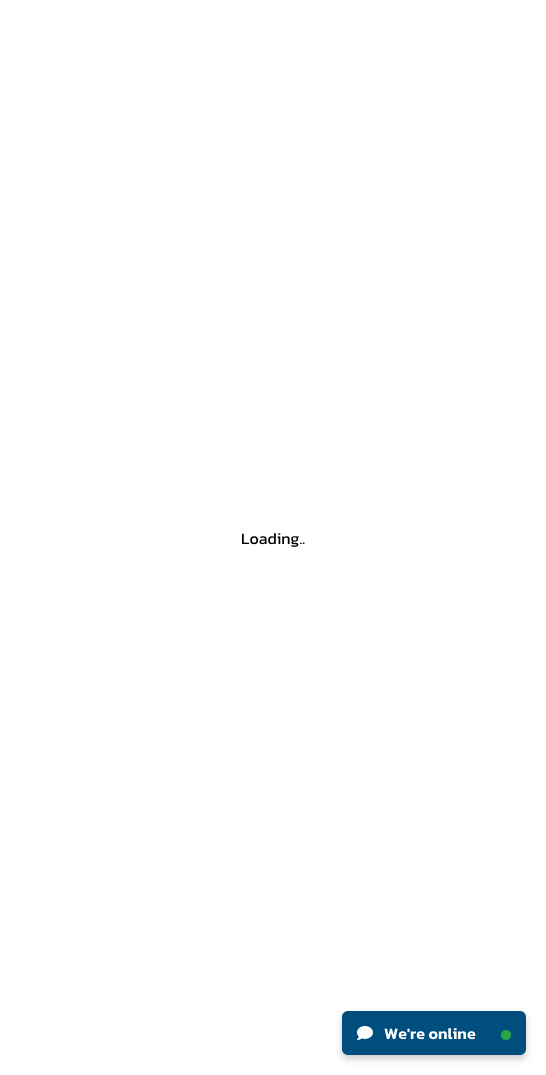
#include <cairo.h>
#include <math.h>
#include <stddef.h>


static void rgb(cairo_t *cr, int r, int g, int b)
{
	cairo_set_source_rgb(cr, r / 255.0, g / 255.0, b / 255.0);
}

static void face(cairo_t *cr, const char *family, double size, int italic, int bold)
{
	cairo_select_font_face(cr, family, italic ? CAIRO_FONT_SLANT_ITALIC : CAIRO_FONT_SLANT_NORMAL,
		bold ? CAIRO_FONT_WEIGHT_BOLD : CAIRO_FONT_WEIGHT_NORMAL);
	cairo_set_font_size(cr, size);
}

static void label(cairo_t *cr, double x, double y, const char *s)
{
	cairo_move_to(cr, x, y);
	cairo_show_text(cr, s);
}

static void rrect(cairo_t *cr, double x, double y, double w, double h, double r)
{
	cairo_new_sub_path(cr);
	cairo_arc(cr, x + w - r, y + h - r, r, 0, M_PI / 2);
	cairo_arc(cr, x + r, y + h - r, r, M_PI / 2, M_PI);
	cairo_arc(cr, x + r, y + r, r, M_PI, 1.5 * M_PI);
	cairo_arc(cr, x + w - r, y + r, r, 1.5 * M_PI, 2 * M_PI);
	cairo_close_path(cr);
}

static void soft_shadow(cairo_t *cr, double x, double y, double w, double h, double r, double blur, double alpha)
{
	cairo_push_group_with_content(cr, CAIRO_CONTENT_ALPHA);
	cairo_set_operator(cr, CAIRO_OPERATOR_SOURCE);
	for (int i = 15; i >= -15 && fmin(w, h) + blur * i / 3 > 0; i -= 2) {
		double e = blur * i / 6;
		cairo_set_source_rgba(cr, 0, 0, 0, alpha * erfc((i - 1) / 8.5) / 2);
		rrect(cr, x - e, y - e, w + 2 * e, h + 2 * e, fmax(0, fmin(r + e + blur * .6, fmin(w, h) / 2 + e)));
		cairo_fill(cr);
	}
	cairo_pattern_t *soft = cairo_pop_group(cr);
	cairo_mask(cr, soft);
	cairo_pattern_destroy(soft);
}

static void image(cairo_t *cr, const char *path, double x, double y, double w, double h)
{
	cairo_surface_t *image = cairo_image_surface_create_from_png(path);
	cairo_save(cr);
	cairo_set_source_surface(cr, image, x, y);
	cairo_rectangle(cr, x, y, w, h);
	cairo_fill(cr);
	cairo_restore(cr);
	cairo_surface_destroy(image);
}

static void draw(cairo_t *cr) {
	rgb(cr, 255, 255, 255);
	cairo_paint(cr);
	face(cr, "Kanit", 16, 0, 0);
	rgb(cr, 0, 0, 0);
	label(cr, 241, 544, "Loading..");
	rgb(cr, 0, 0, 0);
	soft_shadow(cr, 342, 1015, 184, 44, 6, 4, 0.2);
	rgb(cr, 0, 78, 125);
	rrect(cr, 342, 1011, 184, 44, 6);
	cairo_fill(cr);
	image(cr, "image0.png", 357, 1026, 16, 14);
	face(cr, "Kanit SemiBold", 16, 0, 0);
	rgb(cr, 255, 255, 255);
	label(cr, 384, 1039, "We're online");
	rgb(cr, 40, 167, 69);
	cairo_new_path(cr);
	cairo_arc(cr, 506, 1035, 5, 0, 2 * M_PI);
	cairo_fill(cr);
}

int main(void) {
	cairo_surface_t *surface = cairo_image_surface_create(CAIRO_FORMAT_RGB24, 546, 1075);
	cairo_t *cr = cairo_create(surface);
	cairo_font_options_t *options = cairo_font_options_create();
	cairo_font_options_set_hint_metrics(options, CAIRO_HINT_METRICS_OFF);
	cairo_font_options_set_hint_style(options, CAIRO_HINT_STYLE_NONE);
	cairo_set_font_options(cr, options);
	cairo_set_miter_limit(cr, 4);
	draw(cr);
	cairo_surface_write_to_png(surface, "render.png");
	cairo_font_options_destroy(options);
	cairo_destroy(cr);
	cairo_surface_destroy(surface);
	return 0;
}
